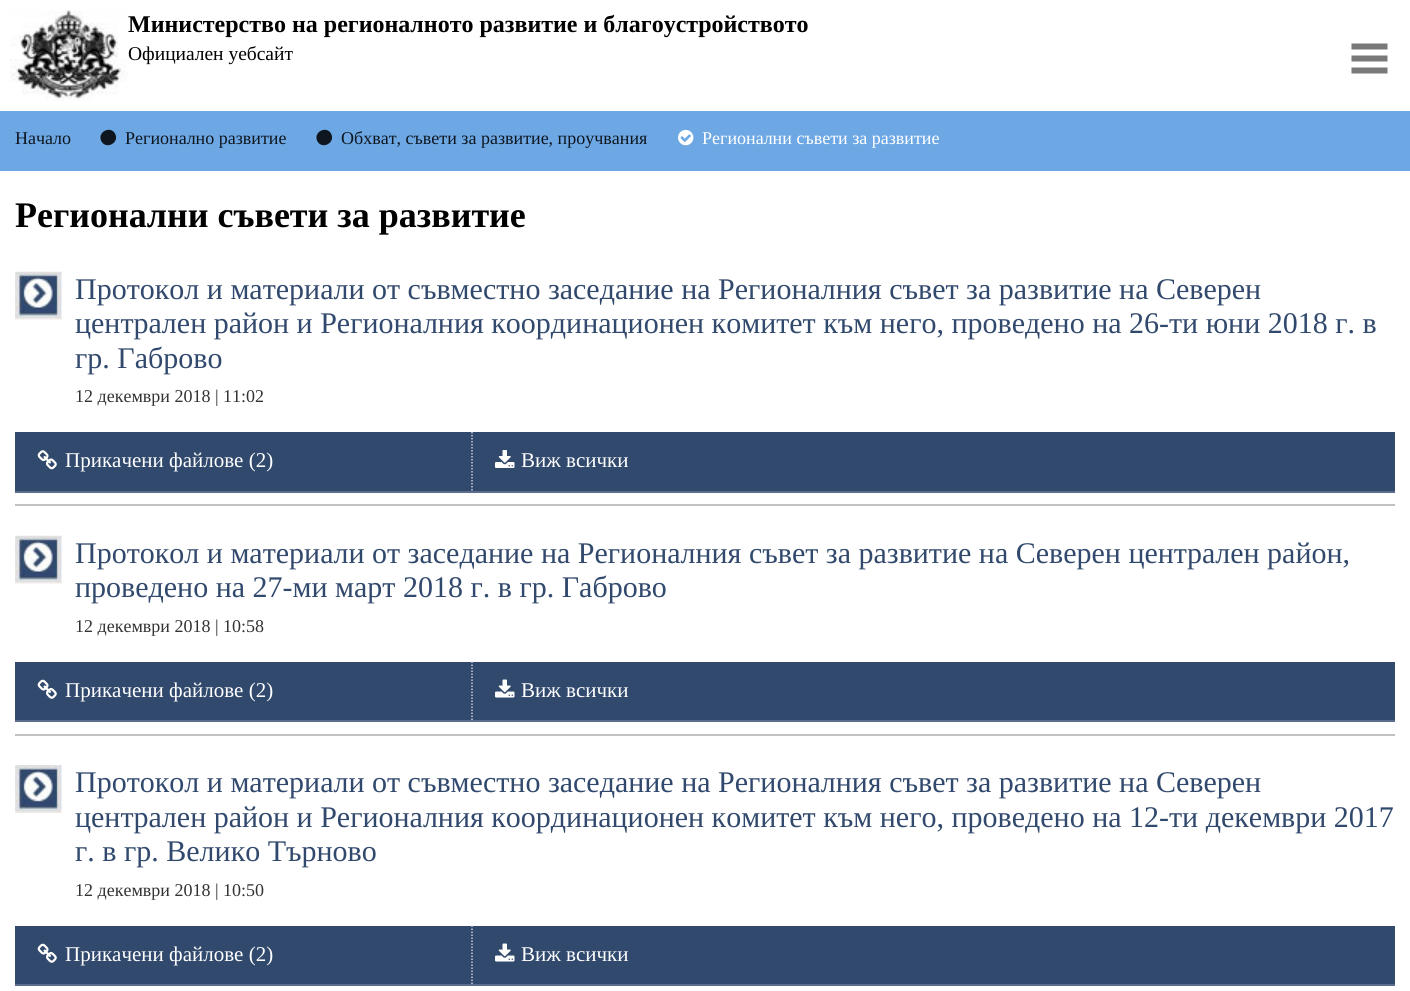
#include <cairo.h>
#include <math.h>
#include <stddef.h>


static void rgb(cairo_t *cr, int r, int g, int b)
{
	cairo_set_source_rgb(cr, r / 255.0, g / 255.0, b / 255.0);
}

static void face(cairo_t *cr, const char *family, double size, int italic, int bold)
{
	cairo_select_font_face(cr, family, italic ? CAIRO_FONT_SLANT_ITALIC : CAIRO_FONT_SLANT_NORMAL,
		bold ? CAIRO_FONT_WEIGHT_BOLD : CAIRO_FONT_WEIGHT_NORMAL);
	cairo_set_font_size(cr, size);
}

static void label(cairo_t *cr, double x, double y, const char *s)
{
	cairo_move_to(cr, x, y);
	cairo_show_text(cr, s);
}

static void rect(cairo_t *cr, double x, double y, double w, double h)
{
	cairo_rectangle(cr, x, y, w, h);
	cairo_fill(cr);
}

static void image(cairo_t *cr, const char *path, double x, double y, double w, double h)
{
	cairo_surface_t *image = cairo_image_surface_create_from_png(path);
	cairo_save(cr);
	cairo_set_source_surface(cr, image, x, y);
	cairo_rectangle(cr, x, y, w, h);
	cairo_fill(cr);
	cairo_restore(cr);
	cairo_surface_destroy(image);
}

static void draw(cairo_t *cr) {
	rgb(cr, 255, 255, 255);
	cairo_paint(cr);
	image(cr, "image0.png", 10, 10, 118, 91);
	face(cr, "Liberation Serif", 24, 0, 1);
	rgb(cr, 0, 0, 0);
	label(cr, 128, 32, "Министерство на регионалното развитие и благоустройството");
	face(cr, "Liberation Serif", 19.5, 0, 0);
	label(cr, 128, 60, "Официален уебсайт");
	image(cr, "image1.png", 1351, 43, 37, 31);
	rgb(cr, 109, 168, 228);
	rect(cr, 0, 111, 1410, 60);
	face(cr, "Liberation Serif", 18, 0, 0);
	rgb(cr, 14, 22, 32);
	label(cr, 15, 144, "Начало");
	cairo_new_path(cr);
	cairo_move_to(cr, 115, 133.5);
	cairo_curve_to(cr, 120, 142.5, 106.5, 150, 101.5, 141.5);
	cairo_curve_to(cr, 96.5, 132.5, 110, 125, 115, 133.5);
	cairo_close_path(cr);
	cairo_fill(cr);
	label(cr, 125, 144, "Регионално развитие");
	cairo_new_path(cr);
	cairo_move_to(cr, 331, 133.5);
	cairo_curve_to(cr, 336, 142.5, 322.5, 150, 317.5, 141.5);
	cairo_curve_to(cr, 312.5, 132.5, 326, 125, 331, 133.5);
	cairo_close_path(cr);
	cairo_fill(cr);
	label(cr, 341, 144, "Обхват, съвети за развитие, проучвания");
	image(cr, "image2.png", 678, 129, 16, 17);
	rgb(cr, 255, 255, 255);
	label(cr, 702, 144, "Регионални съвети за развитие");
	face(cr, "Liberation Serif", 36, 0, 1);
	rgb(cr, 0, 0, 0);
	label(cr, 15, 227, "Регионални съвети за развитие");
	rgb(cr, 193, 193, 193);
	rect(cr, 15, 504, 1380, 2);
	image(cr, "image3.png", 15, 271, 47, 49);
	face(cr, "Liberation Serif", 30, 0, 0);
	rgb(cr, 49, 73, 109);
	label(cr, 75, 299, "Протокол и материали от съвместно заседание на Регионалния съвет за развитие на Северен");
	label(cr, 75, 333, "централен район и Регионалния координационен комитет към него, проведено на 26-ти юни 2018 г. в");
	label(cr, 75, 368, "гр. Габрово");
	face(cr, "Liberation Serif", 18, 0, 0);
	rgb(cr, 51, 51, 51);
	label(cr, 75, 402, "12 декември 2018 | 11:02");
	rgb(cr, 49, 73, 109);
	rect(cr, 15, 432, 1380, 59);
	rgb(cr, 90, 109, 139);
	rect(cr, 15, 491, 1380, 2);
	cairo_new_path(cr);
	cairo_move_to(cr, 472, 432);
	cairo_line_to(cr, 472, 490.5);
	rgb(cr, 202, 202, 202);
	cairo_set_line_width(cr, 1.5);
	cairo_set_dash(cr, (double[]){1.5, 1.5}, 2, 0);
	cairo_stroke(cr);
	image(cr, "image4.png", 37, 450, 20, 20);
	face(cr, "Liberation Serif", 21, 0, 0);
	rgb(cr, 255, 255, 255);
	label(cr, 65, 467, "Прикачени файлове (2)");
	image(cr, "image5.png", 495, 450, 20, 18);
	label(cr, 521, 467, "Виж всички");
	rgb(cr, 193, 193, 193);
	rect(cr, 15, 734, 1380, 2);
	image(cr, "image3.png", 15, 535, 47, 49);
	face(cr, "Liberation Serif", 30, 0, 0);
	rgb(cr, 49, 73, 109);
	label(cr, 75, 563, "Протокол и материали от заседание на Регионалния съвет за развитие на Северен централен район,");
	label(cr, 75, 597, "проведено на 27-ми март 2018 г. в гр. Габрово");
	face(cr, "Liberation Serif", 18, 0, 0);
	rgb(cr, 51, 51, 51);
	label(cr, 75, 632, "12 декември 2018 | 10:58");
	rgb(cr, 49, 73, 109);
	rect(cr, 15, 662, 1380, 58);
	rgb(cr, 90, 109, 139);
	rect(cr, 15, 720, 1380, 2);
	cairo_new_path(cr);
	cairo_move_to(cr, 472, 661.5);
	cairo_line_to(cr, 472, 720);
	rgb(cr, 202, 202, 202);
	cairo_stroke(cr);
	image(cr, "image6.png", 37, 679, 20, 20);
	face(cr, "Liberation Serif", 21, 0, 0);
	rgb(cr, 255, 255, 255);
	label(cr, 65, 697, "Прикачени файлове (2)");
	image(cr, "image7.png", 495, 679, 20, 19);
	label(cr, 521, 697, "Виж всички");
	image(cr, "image8.png", 15, 765, 47, 48);
	face(cr, "Liberation Serif", 30, 0, 0);
	rgb(cr, 49, 73, 109);
	label(cr, 75, 792, "Протокол и материали от съвместно заседание на Регионалния съвет за развитие на Северен");
	label(cr, 75, 827, "централен район и Регионалния координационен комитет към него, проведено на 12-ти декември 2017");
	label(cr, 75, 861, "г. в гр. Велико Търново");
	face(cr, "Liberation Serif", 18, 0, 0);
	rgb(cr, 51, 51, 51);
	label(cr, 75, 896, "12 декември 2018 | 10:50");
	rgb(cr, 49, 73, 109);
	rect(cr, 15, 926, 1380, 58);
	rgb(cr, 90, 109, 139);
	rect(cr, 15, 984, 1380, 2);
	cairo_new_path(cr);
	cairo_move_to(cr, 472, 925.5);
	cairo_line_to(cr, 472, 984);
	rgb(cr, 202, 202, 202);
	cairo_stroke(cr);
	image(cr, "image6.png", 37, 943, 20, 20);
	face(cr, "Liberation Serif", 21, 0, 0);
	rgb(cr, 255, 255, 255);
	label(cr, 65, 961, "Прикачени файлове (2)");
	image(cr, "image7.png", 495, 943, 20, 19);
	label(cr, 521, 961, "Виж всички");
}

int main(void) {
	cairo_surface_t *surface = cairo_image_surface_create(CAIRO_FORMAT_RGB24, 1410, 991);
	cairo_t *cr = cairo_create(surface);
	cairo_font_options_t *options = cairo_font_options_create();
	cairo_font_options_set_hint_metrics(options, CAIRO_HINT_METRICS_OFF);
	cairo_font_options_set_hint_style(options, CAIRO_HINT_STYLE_NONE);
	cairo_set_font_options(cr, options);
	cairo_set_miter_limit(cr, 4);
	draw(cr);
	cairo_surface_write_to_png(surface, "render.png");
	cairo_font_options_destroy(options);
	cairo_destroy(cr);
	cairo_surface_destroy(surface);
	return 0;
}
